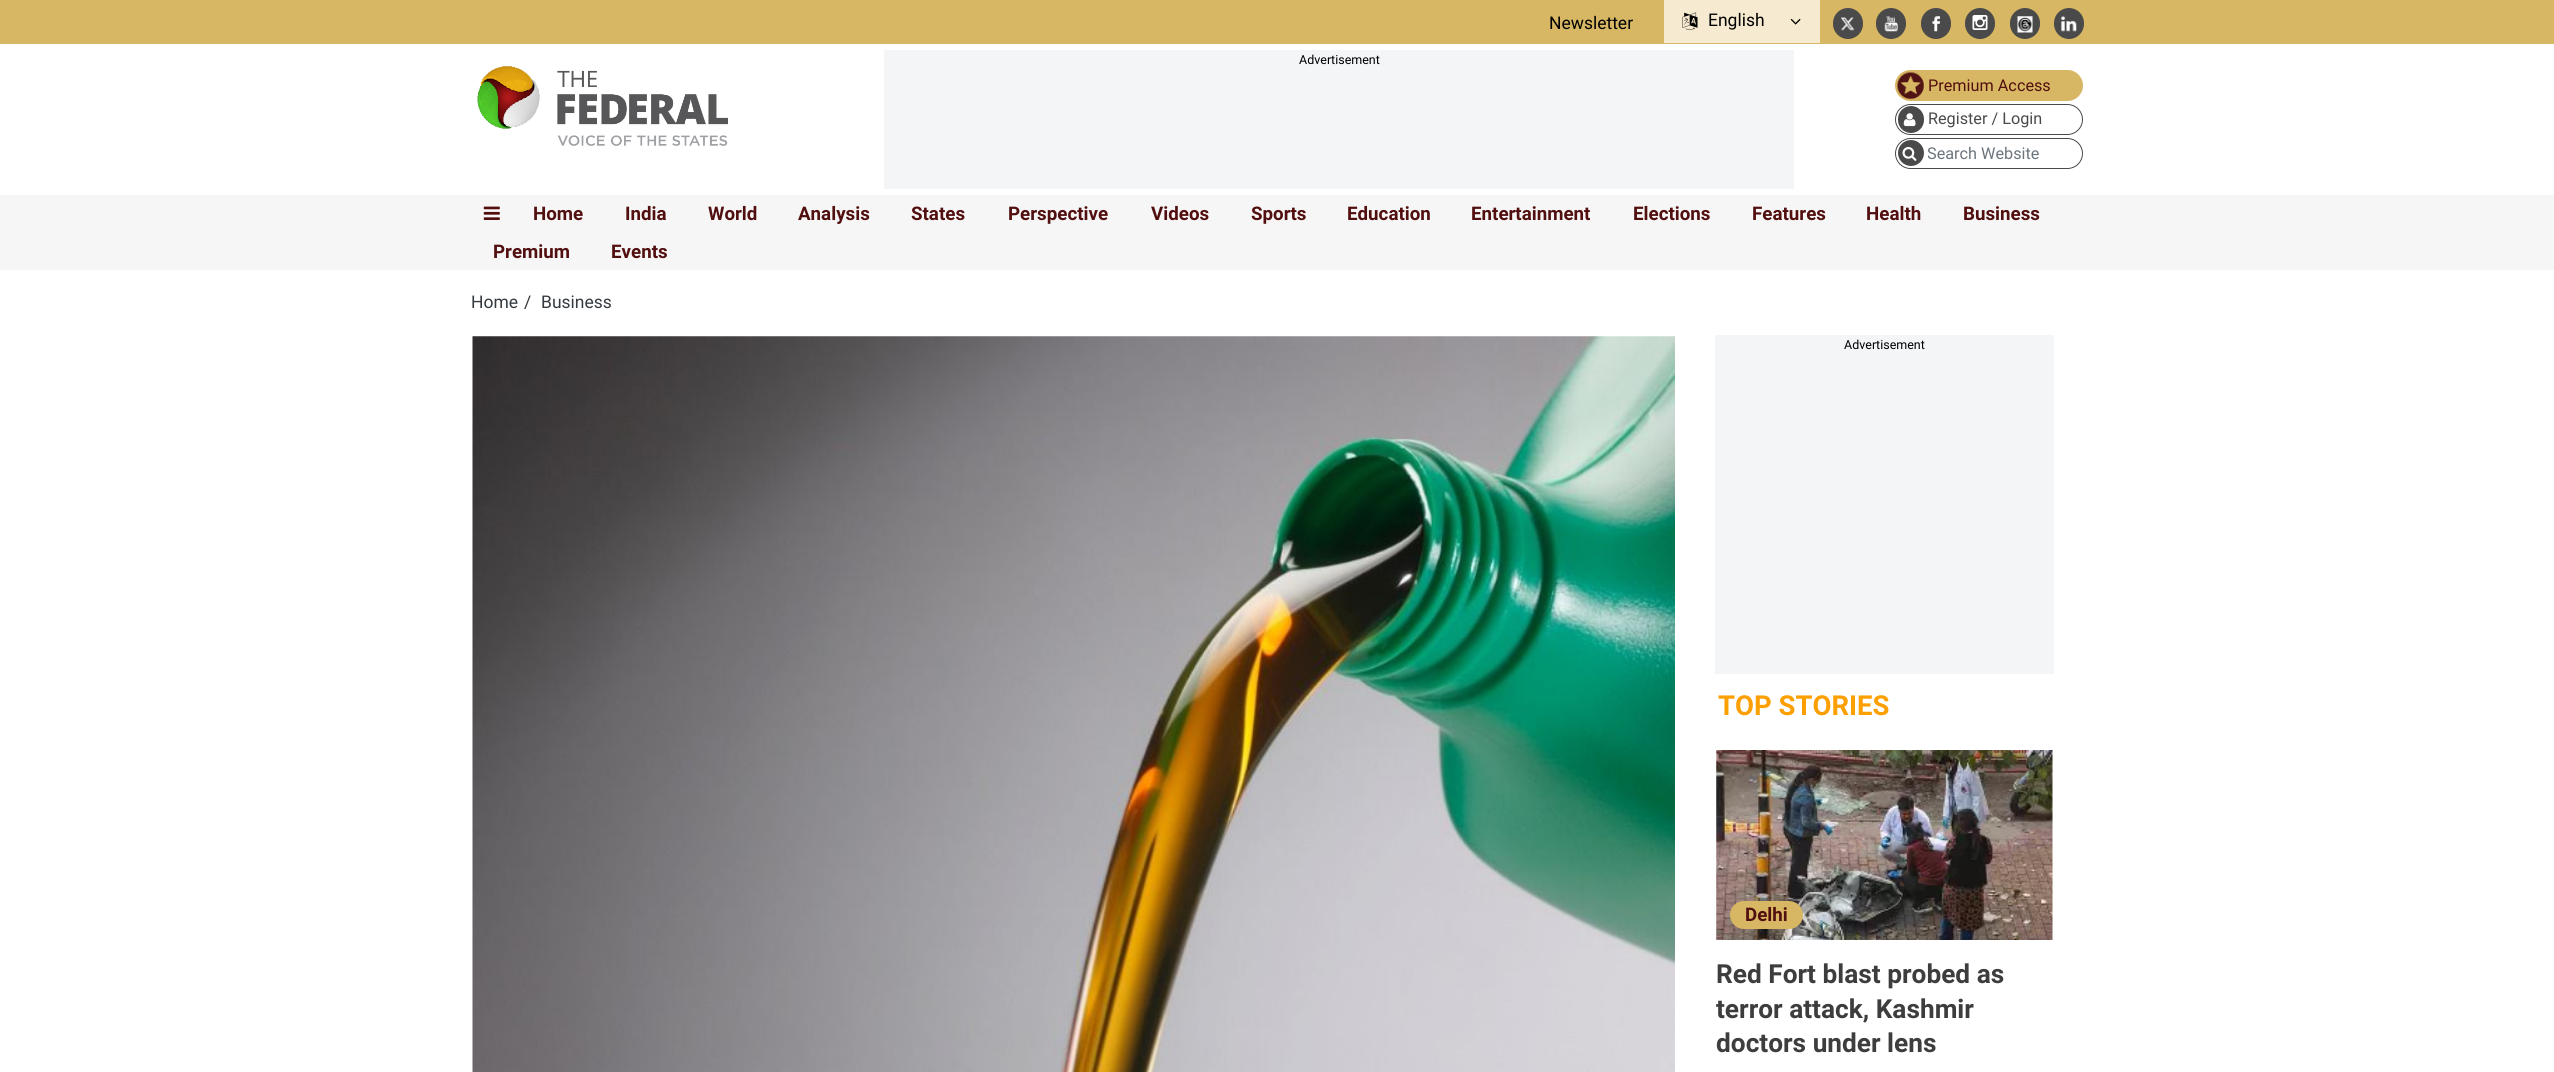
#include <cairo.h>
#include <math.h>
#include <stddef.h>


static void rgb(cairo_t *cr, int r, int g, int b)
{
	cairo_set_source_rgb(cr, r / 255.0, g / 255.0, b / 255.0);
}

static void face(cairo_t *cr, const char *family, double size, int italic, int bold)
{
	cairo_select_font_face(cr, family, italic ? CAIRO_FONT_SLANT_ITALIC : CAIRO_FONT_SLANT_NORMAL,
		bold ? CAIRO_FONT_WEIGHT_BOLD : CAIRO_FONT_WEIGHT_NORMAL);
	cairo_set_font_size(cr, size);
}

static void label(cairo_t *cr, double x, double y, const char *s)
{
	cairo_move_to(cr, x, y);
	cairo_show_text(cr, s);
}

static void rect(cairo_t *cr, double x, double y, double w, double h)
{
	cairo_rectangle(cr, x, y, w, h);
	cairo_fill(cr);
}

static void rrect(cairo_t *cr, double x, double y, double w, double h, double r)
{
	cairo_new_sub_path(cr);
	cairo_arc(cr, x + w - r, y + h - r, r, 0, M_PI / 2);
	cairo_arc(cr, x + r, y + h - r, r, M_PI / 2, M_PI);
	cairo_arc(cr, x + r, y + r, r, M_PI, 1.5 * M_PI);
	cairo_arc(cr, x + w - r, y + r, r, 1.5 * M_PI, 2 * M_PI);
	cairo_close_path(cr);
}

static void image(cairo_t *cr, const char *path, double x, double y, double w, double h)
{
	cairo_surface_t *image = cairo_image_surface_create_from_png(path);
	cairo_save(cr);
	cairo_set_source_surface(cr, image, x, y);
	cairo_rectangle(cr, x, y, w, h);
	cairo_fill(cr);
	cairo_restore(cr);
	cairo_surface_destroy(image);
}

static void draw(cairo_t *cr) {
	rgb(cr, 255, 255, 255);
	cairo_paint(cr);
	rgb(cr, 215, 183, 99);
	rect(cr, 0, 0, 2554, 44);
	face(cr, "Roboto", 17.5, 0, 0);
	rgb(cr, 0, 0, 0);
	label(cr, 1549, 29, "Newsletter");
	rgb(cr, 246, 235, 208);
	rect(cr, 1664, 0, 156, 43);
	image(cr, "image0.png", 1682, 12, 16, 18);
	rgb(cr, 0, 0, 0);
	label(cr, 1708, 26, "English");
	image(cr, "image1.png", 1790, 18, 11, 7);
	rgb(cr, 74, 74, 74);
	rrect(cr, 1833, 8, 30, 31, 15);
	cairo_fill(cr);
	image(cr, "image2.png", 1841, 17, 14, 14);
	rrect(cr, 1876, 8, 30, 31, 15);
	cairo_fill(cr);
	image(cr, "image3.png", 1884, 16, 14, 16);
	rrect(cr, 1921, 8, 30, 31, 15);
	cairo_fill(cr);
	image(cr, "image4.png", 1932, 16, 8, 16);
	rrect(cr, 1965, 8, 30, 31, 15);
	cairo_fill(cr);
	image(cr, "image5.png", 1972, 15, 16, 15);
	rrect(cr, 2010, 8, 30, 31, 15);
	cairo_fill(cr);
	image(cr, "image6.png", 2017, 16, 16, 17);
	rrect(cr, 2054, 8, 30, 31, 15);
	cairo_fill(cr);
	image(cr, "image7.png", 2061, 16, 16, 16);
	rgb(cr, 244, 245, 247);
	rect(cr, 884, 50, 910, 139);
	face(cr, "Roboto", 12.5, 0, 0);
	rgb(cr, 0, 0, 0);
	label(cr, 1299, 64, "Advertisement");
	image(cr, "image8.png", 477, 66, 251, 80);
	rgb(cr, 215, 183, 99);
	rrect(cr, 1895, 70, 188, 31, 15.5);
	cairo_fill(cr);
	image(cr, "image9.png", 1897, 72, 27, 27);
	face(cr, "Roboto", 16.25, 0, 0);
	rgb(cr, 82, 15, 15);
	label(cr, 1928, 91, "Premium Access");
	rrect(cr, 1895.5, 104.5, 187, 30, 15);
	rgb(cr, 74, 74, 74);
	cairo_set_line_width(cr, 1);
	cairo_stroke(cr);
	rrect(cr, 1898, 106, 26, 27, 13);
	cairo_fill(cr);
	image(cr, "image10.png", 1903, 113, 13, 14);
	label(cr, 1928, 124, "Register / Login");
	rrect(cr, 1895.5, 138.5, 187, 30, 15);
	cairo_stroke(cr);
	cairo_arc(cr, 1911, 153, 13, 0, 2 * M_PI);
	cairo_fill(cr);
	image(cr, "image11.png", 1902, 147, 15, 14);
	cairo_save(cr);
	cairo_rectangle(cr, 1928, 144, 135, 19);
	cairo_clip(cr);
	rgb(cr, 108, 117, 125);
	label(cr, 1927, 159, "Search Website");
	cairo_restore(cr);
	rgb(cr, 246, 246, 246);
	rect(cr, 0, 195, 2554, 75);
	image(cr, "image12.png", 483, 206, 17, 14);
	face(cr, "Roboto", 18.75, 0, 1);
	rgb(cr, 82, 15, 15);
	label(cr, 533, 220, "Home");
	label(cr, 625, 220, "India");
	label(cr, 708, 220, "World");
	label(cr, 798, 220, "Analysis");
	label(cr, 911, 220, "States");
	label(cr, 1008, 220, "Perspective");
	label(cr, 1151, 220, "Videos");
	label(cr, 1251, 220, "Sports");
	label(cr, 1347, 220, "Education");
	label(cr, 1471, 220, "Entertainment");
	label(cr, 1633, 220, "Elections");
	label(cr, 1752, 220, "Features");
	label(cr, 1866, 220, "Health");
	label(cr, 1963, 220, "Business");
	label(cr, 493, 258, "Premium");
	label(cr, 611, 258, "Events");
	face(cr, "Roboto", 17.5, 0, 0);
	rgb(cr, 52, 58, 64);
	label(cr, 471, 308, "Home");
	rgb(cr, 54, 54, 54);
	label(cr, 524, 308, "/");
	rgb(cr, 52, 58, 64);
	label(cr, 541, 308, "Business");
	image(cr, "image13.png", 472, 336, 1203, 736);
	rgb(cr, 244, 245, 247);
	rect(cr, 1715, 335, 339, 339);
	face(cr, "Roboto", 12.5, 0, 0);
	rgb(cr, 0, 0, 0);
	label(cr, 1844, 349, "Advertisement");
	face(cr, "Roboto", 27.5, 0, 1);
	rgb(cr, 252, 159, 0);
	label(cr, 1718, 715, "TOP STORIES");
	image(cr, "image14.png", 1716, 750, 337, 190);
	rgb(cr, 215, 183, 99);
	rrect(cr, 1730, 901, 73, 28, 14);
	cairo_fill(cr);
	face(cr, "Roboto", 18.75, 0, 1);
	rgb(cr, 82, 15, 15);
	label(cr, 1745, 921, "Delhi");
	face(cr, "Roboto", 26.25, 0, 1);
	rgb(cr, 61, 61, 61);
	label(cr, 1716, 983, "Red Fort blast probed as");
	label(cr, 1716, 1018, "terror attack, Kashmir");
	label(cr, 1716, 1052, "doctors under lens");
}

int main(void) {
	cairo_surface_t *surface = cairo_image_surface_create(CAIRO_FORMAT_RGB24, 2554, 1072);
	cairo_t *cr = cairo_create(surface);
	cairo_font_options_t *options = cairo_font_options_create();
	cairo_font_options_set_hint_metrics(options, CAIRO_HINT_METRICS_OFF);
	cairo_font_options_set_hint_style(options, CAIRO_HINT_STYLE_NONE);
	cairo_set_font_options(cr, options);
	cairo_set_miter_limit(cr, 4);
	draw(cr);
	cairo_surface_write_to_png(surface, "render.png");
	cairo_font_options_destroy(options);
	cairo_destroy(cr);
	cairo_surface_destroy(surface);
	return 0;
}
